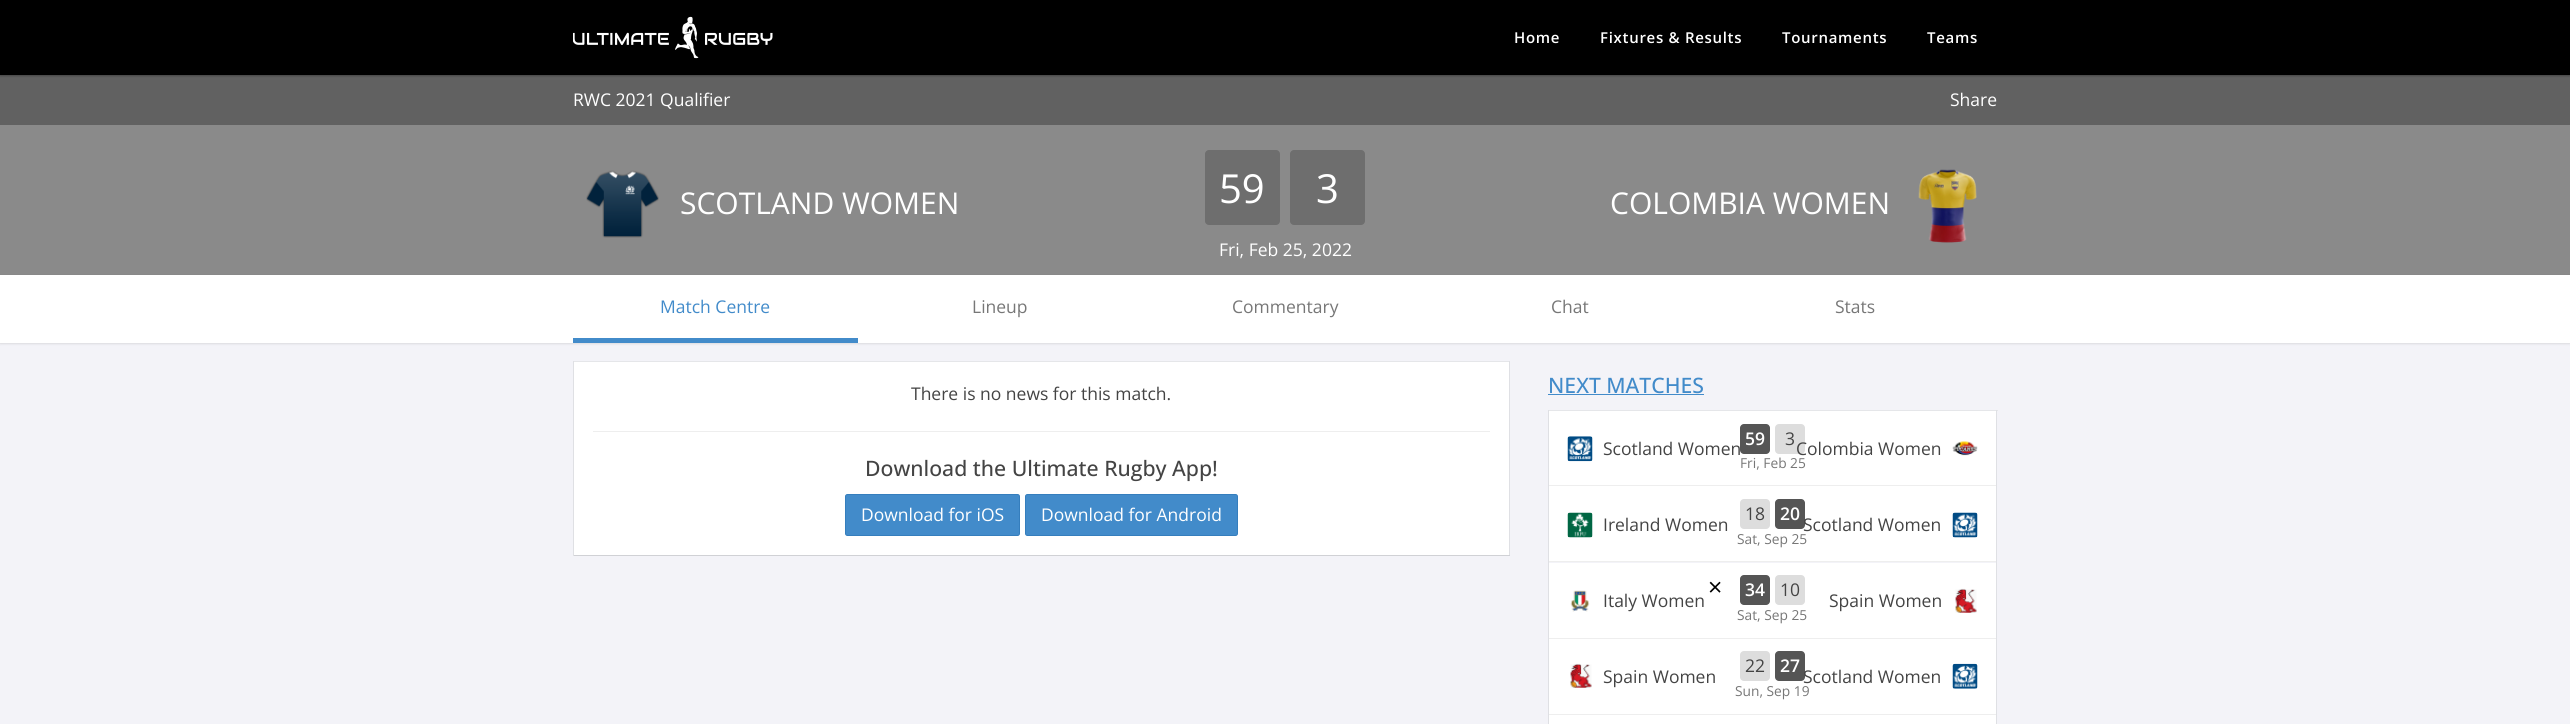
#include <cairo.h>
#include <math.h>
#include <stddef.h>


static void rgb(cairo_t *cr, int r, int g, int b)
{
	cairo_set_source_rgb(cr, r / 255.0, g / 255.0, b / 255.0);
}

static void face(cairo_t *cr, const char *family, double size, int italic, int bold)
{
	cairo_select_font_face(cr, family, italic ? CAIRO_FONT_SLANT_ITALIC : CAIRO_FONT_SLANT_NORMAL,
		bold ? CAIRO_FONT_WEIGHT_BOLD : CAIRO_FONT_WEIGHT_NORMAL);
	cairo_set_font_size(cr, size);
}

static void label(cairo_t *cr, double x, double y, const char *s)
{
	cairo_move_to(cr, x, y);
	cairo_show_text(cr, s);
}

static void tracked(cairo_t *cr, double x, double y, const char *s, double letter, double word)
{
	cairo_move_to(cr, x, y);
	while (*s) {
		char ch[5] = {0};
		int n = 0;
		do ch[n++] = *s++; while ((*s & 0xC0) == 0x80);
		cairo_show_text(cr, ch);
		cairo_rel_move_to(cr, letter + word * (*ch == ' '), 0);
	}
}

static void rect(cairo_t *cr, double x, double y, double w, double h)
{
	cairo_rectangle(cr, x, y, w, h);
	cairo_fill(cr);
}

static void rrect(cairo_t *cr, double x, double y, double w, double h, double r)
{
	cairo_new_sub_path(cr);
	cairo_arc(cr, x + w - r, y + h - r, r, 0, M_PI / 2);
	cairo_arc(cr, x + r, y + h - r, r, M_PI / 2, M_PI);
	cairo_arc(cr, x + r, y + r, r, M_PI, 1.5 * M_PI);
	cairo_arc(cr, x + w - r, y + r, r, 1.5 * M_PI, 2 * M_PI);
	cairo_close_path(cr);
}

static void soft_shadow(cairo_t *cr, double x, double y, double w, double h, double r, double blur, double alpha)
{
	cairo_push_group_with_content(cr, CAIRO_CONTENT_ALPHA);
	cairo_set_operator(cr, CAIRO_OPERATOR_SOURCE);
	for (int i = 15; i >= -15 && fmin(w, h) + blur * i / 3 > 0; i -= 2) {
		double e = blur * i / 6;
		cairo_set_source_rgba(cr, 0, 0, 0, alpha * erfc((i - 1) / 8.5) / 2);
		rrect(cr, x - e, y - e, w + 2 * e, h + 2 * e, fmax(0, fmin(r + e + blur * .6, fmin(w, h) / 2 + e)));
		cairo_fill(cr);
	}
	cairo_pattern_t *soft = cairo_pop_group(cr);
	cairo_mask(cr, soft);
	cairo_pattern_destroy(soft);
}

static void image(cairo_t *cr, const char *path, double x, double y, double w, double h)
{
	cairo_surface_t *image = cairo_image_surface_create_from_png(path);
	cairo_save(cr);
	cairo_set_source_surface(cr, image, x, y);
	cairo_rectangle(cr, x, y, w, h);
	cairo_fill(cr);
	cairo_restore(cr);
	cairo_surface_destroy(image);
}

static void draw(cairo_t *cr) {
	rgb(cr, 243, 243, 248);
	cairo_paint(cr);
	rgb(cr, 97, 97, 97);
	rect(cr, 0, 75, 2570, 50);
	rgb(cr, 0, 0, 0);
	soft_shadow(cr, 0, 1, 2570, 75, 0, 1, 0.3);
	rgb(cr, 0, 0, 0);
	rect(cr, 0, 0, 2570, 75);
	image(cr, "image0.png", 573, 16, 200, 43);
	face(cr, "Open Sans SemiBold", 15, 0, 0);
	rgb(cr, 255, 255, 255);
	tracked(cr, 1514, 43, "Home", 0.7, 0);
	tracked(cr, 1600, 43, "Fixtures & Results", 0.7, 0);
	tracked(cr, 1782, 43, "Tournaments", 0.7, 0);
	tracked(cr, 1927, 43, "Teams", 0.7, 0);
	face(cr, "Open Sans", 17.5, 0, 0);
	label(cr, 573, 106, "RWC 2021 Qualifier");
	label(cr, 1950, 106, "Share");
	rgb(cr, 138, 138, 138);
	rect(cr, 0, 125, 2570, 150);
	image(cr, "image1.png", 586, 170, 73, 68);
	face(cr, "Open Sans", 30, 0, 0);
	rgb(cr, 255, 255, 255);
	label(cr, 680, 214, "SCOTLAND WOMEN");
	rgb(cr, 110, 110, 110);
	rrect(cr, 1205, 150, 75, 75, 4);
	cairo_fill(cr);
	face(cr, "Open Sans", 40, 0, 0);
	rgb(cr, 255, 255, 255);
	label(cr, 1219, 203, "59");
	rgb(cr, 110, 110, 110);
	rrect(cr, 1290, 150, 75, 75, 4);
	cairo_fill(cr);
	rgb(cr, 255, 255, 255);
	label(cr, 1316, 203, "3");
	face(cr, "Open Sans", 17.5, 0, 0);
	label(cr, 1219, 256, "Fri, Feb 25, 2022");
	face(cr, "Open Sans", 30, 0, 0);
	label(cr, 1610, 214, "COLOMBIA WOMEN");
	image(cr, "image2.png", 1918, 169, 59, 74);
	rgb(cr, 0, 0, 0);
	soft_shadow(cr, 0, 276, 2570, 68, 0, 1, 0.1);
	rgb(cr, 255, 255, 255);
	rect(cr, 0, 275, 2570, 68);
	rgb(cr, 66, 139, 202);
	rect(cr, 573, 338, 285, 5);
	face(cr, "Open Sans", 17.5, 0, 0);
	label(cr, 660, 313, "Match Centre");
	rgb(cr, 119, 119, 119);
	label(cr, 972, 313, "Lineup");
	label(cr, 1232, 313, "Commentary");
	label(cr, 1551, 313, "Chat");
	label(cr, 1835, 313, "Stats");
	rgb(cr, 255, 255, 255);
	rect(cr, 574, 362, 935, 193);
	rgb(cr, 229, 230, 233);
	rect(cr, 573, 361, 937, 1);
	rgb(cr, 223, 224, 228);
	rect(cr, 1509, 361, 1, 195);
	rgb(cr, 208, 209, 213);
	rect(cr, 573, 555, 937, 1);
	rgb(cr, 223, 224, 228);
	rect(cr, 573, 361, 1, 195);
	rgb(cr, 68, 68, 68);
	label(cr, 911, 400, "There is no news for this match.");
	rgb(cr, 238, 238, 238);
	rect(cr, 593, 431, 897, 1);
	face(cr, "Open Sans Medium", 21.25, 0, 0);
	rgb(cr, 68, 68, 68);
	label(cr, 865, 476, "Download the Ultimate Rugby App!");
	rgb(cr, 66, 139, 202);
	rrect(cr, 845.5, 494.5, 174, 41, 2);
	cairo_fill_preserve(cr);
	rgb(cr, 53, 126, 189);
	cairo_set_line_width(cr, 1);
	cairo_stroke(cr);
	face(cr, "Open Sans", 17.5, 0, 0);
	rgb(cr, 255, 255, 255);
	label(cr, 861, 521, "Download for iOS");
	rgb(cr, 66, 139, 202);
	rrect(cr, 1025.5, 494.5, 212, 41, 2);
	cairo_fill_preserve(cr);
	rgb(cr, 53, 126, 189);
	cairo_stroke(cr);
	rgb(cr, 255, 255, 255);
	label(cr, 1041, 521, "Download for Android");
	face(cr, "Open Sans Medium", 21.25, 0, 0);
	rgb(cr, 66, 139, 202);
	label(cr, 1548, 393, "NEXT MATCHES");
	rect(cr, 1548, 394, 156, 1);
	rgb(cr, 229, 230, 233);
	rect(cr, 1548, 410, 450, 1);
	rgb(cr, 223, 224, 228);
	rect(cr, 1996, 410, 1, 314);
	rect(cr, 1548, 410, 1, 314);
	rgb(cr, 238, 238, 238);
	rect(cr, 1549, 485, 447, 1);
	rgb(cr, 255, 255, 255);
	rect(cr, 1549, 411, 447, 74);
	image(cr, "image3.png", 1567, 436, 26, 26);
	rgb(cr, 85, 85, 85);
	rrect(cr, 1740, 424, 30, 30, 4);
	cairo_fill(cr);
	face(cr, "Open Sans", 17.5, 0, 0);
	rgb(cr, 68, 68, 68);
	label(cr, 1603, 455, "Scotland Women");
	face(cr, "Open Sans SemiBold", 17.5, 0, 0);
	rgb(cr, 255, 255, 255);
	label(cr, 1745, 445, "59");
	rgb(cr, 221, 221, 221);
	rrect(cr, 1775, 424, 30, 30, 4);
	cairo_fill(cr);
	face(cr, "Open Sans", 17.5, 0, 0);
	rgb(cr, 68, 68, 68);
	label(cr, 1785, 445, "3");
	face(cr, "Open Sans", 13.75, 0, 0);
	rgb(cr, 119, 119, 119);
	label(cr, 1740, 468, "Fri, Feb 25");
	face(cr, "Open Sans", 17.5, 0, 0);
	rgb(cr, 68, 68, 68);
	label(cr, 1796, 455, "Colombia Women");
	image(cr, "image4.png", 1952, 441, 26, 15);
	rgb(cr, 238, 238, 238);
	rect(cr, 1549, 561, 447, 1);
	rgb(cr, 255, 255, 255);
	rect(cr, 1549, 486, 447, 75);
	image(cr, "image5.png", 1567, 512, 26, 26);
	rgb(cr, 68, 68, 68);
	label(cr, 1603, 531, "Ireland Women");
	rgb(cr, 221, 221, 221);
	rrect(cr, 1740, 499, 30, 30, 4);
	cairo_fill(cr);
	rgb(cr, 68, 68, 68);
	label(cr, 1745, 520, "18");
	rgb(cr, 85, 85, 85);
	rrect(cr, 1775, 499, 30, 30, 4);
	cairo_fill(cr);
	face(cr, "Open Sans SemiBold", 17.5, 0, 0);
	rgb(cr, 255, 255, 255);
	label(cr, 1780, 520, "20");
	face(cr, "Open Sans", 13.75, 0, 0);
	rgb(cr, 119, 119, 119);
	label(cr, 1737, 544, "Sat, Sep 25");
	face(cr, "Open Sans", 17.5, 0, 0);
	rgb(cr, 68, 68, 68);
	label(cr, 1803, 531, "Scotland Women");
	image(cr, "image6.png", 1952, 512, 26, 26);
	rgb(cr, 238, 238, 238);
	rect(cr, 1549, 638, 447, 1);
	rgb(cr, 255, 255, 255);
	rect(cr, 1549, 563, 447, 75);
	image(cr, "image7.png", 1570, 590, 20, 22);
	rgb(cr, 68, 68, 68);
	label(cr, 1603, 607, "Italy Women");
	rgb(cr, 85, 85, 85);
	rrect(cr, 1740, 575, 30, 30, 4);
	cairo_fill(cr);
	face(cr, "Open Sans SemiBold", 17.5, 0, 0);
	rgb(cr, 255, 255, 255);
	label(cr, 1745, 596, "34");
	rgb(cr, 221, 221, 221);
	rrect(cr, 1775, 575, 30, 30, 4);
	cairo_fill(cr);
	face(cr, "Open Sans", 17.5, 0, 0);
	rgb(cr, 68, 68, 68);
	label(cr, 1780, 596, "10");
	face(cr, "Open Sans", 13.75, 0, 0);
	rgb(cr, 119, 119, 119);
	label(cr, 1737, 620, "Sat, Sep 25");
	face(cr, "Open Sans", 17.5, 0, 0);
	rgb(cr, 68, 68, 68);
	label(cr, 1829, 607, "Spain Women");
	image(cr, "image8.png", 1955, 588, 22, 25);
	rgb(cr, 238, 238, 238);
	rect(cr, 1549, 714, 447, 1);
	rgb(cr, 255, 255, 255);
	rect(cr, 1549, 639, 447, 75);
	image(cr, "image8.png", 1570, 663, 22, 25);
	rgb(cr, 68, 68, 68);
	label(cr, 1603, 683, "Spain Women");
	rgb(cr, 221, 221, 221);
	rrect(cr, 1740, 651, 30, 30, 4);
	cairo_fill(cr);
	rgb(cr, 68, 68, 68);
	label(cr, 1745, 672, "22");
	rgb(cr, 85, 85, 85);
	rrect(cr, 1775, 651, 30, 30, 4);
	cairo_fill(cr);
	face(cr, "Open Sans SemiBold", 17.5, 0, 0);
	rgb(cr, 255, 255, 255);
	label(cr, 1780, 672, "27");
	face(cr, "Open Sans", 13.75, 0, 0);
	rgb(cr, 119, 119, 119);
	label(cr, 1735, 696, "Sun, Sep 19");
	face(cr, "Open Sans", 17.5, 0, 0);
	rgb(cr, 68, 68, 68);
	label(cr, 1803, 683, "Scotland Women");
	image(cr, "image9.png", 1952, 663, 26, 26);
	rgb(cr, 255, 255, 255);
	rect(cr, 1549, 715, 447, 9);
	face(cr, "Open Sans", 25, 0, 0);
	rgb(cr, 0, 0, 0);
	label(cr, 1708, 596, "×");
}

int main(void) {
	cairo_surface_t *surface = cairo_image_surface_create(CAIRO_FORMAT_RGB24, 2570, 724);
	cairo_t *cr = cairo_create(surface);
	cairo_font_options_t *options = cairo_font_options_create();
	cairo_font_options_set_hint_metrics(options, CAIRO_HINT_METRICS_OFF);
	cairo_font_options_set_hint_style(options, CAIRO_HINT_STYLE_NONE);
	cairo_set_font_options(cr, options);
	cairo_set_miter_limit(cr, 4);
	draw(cr);
	cairo_surface_write_to_png(surface, "render.png");
	cairo_font_options_destroy(options);
	cairo_destroy(cr);
	cairo_surface_destroy(surface);
	return 0;
}
